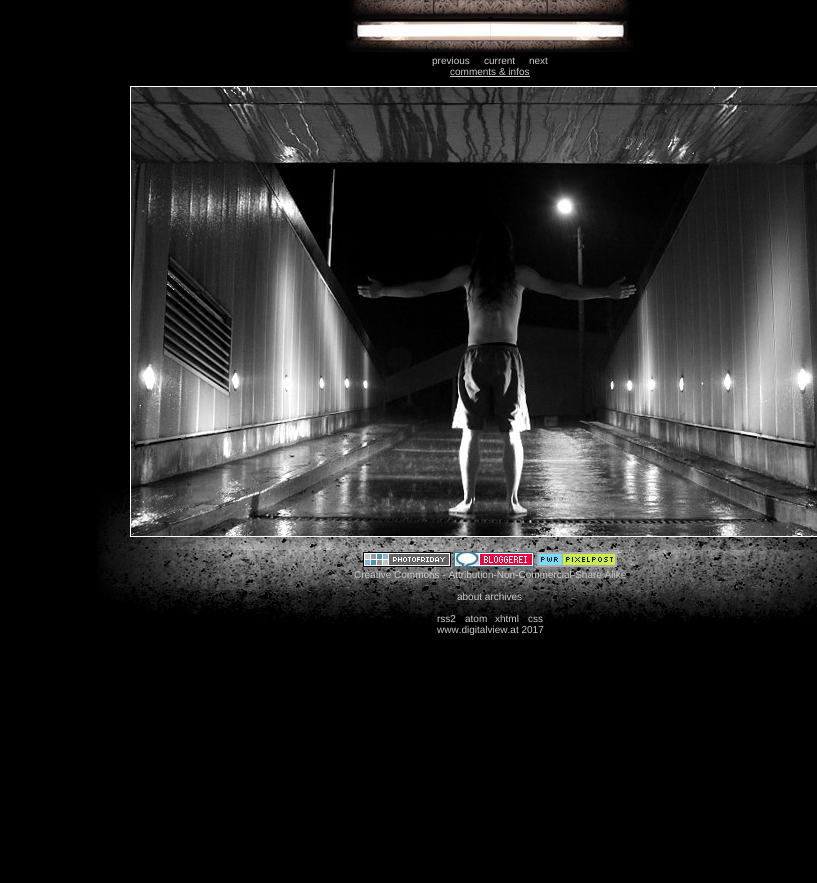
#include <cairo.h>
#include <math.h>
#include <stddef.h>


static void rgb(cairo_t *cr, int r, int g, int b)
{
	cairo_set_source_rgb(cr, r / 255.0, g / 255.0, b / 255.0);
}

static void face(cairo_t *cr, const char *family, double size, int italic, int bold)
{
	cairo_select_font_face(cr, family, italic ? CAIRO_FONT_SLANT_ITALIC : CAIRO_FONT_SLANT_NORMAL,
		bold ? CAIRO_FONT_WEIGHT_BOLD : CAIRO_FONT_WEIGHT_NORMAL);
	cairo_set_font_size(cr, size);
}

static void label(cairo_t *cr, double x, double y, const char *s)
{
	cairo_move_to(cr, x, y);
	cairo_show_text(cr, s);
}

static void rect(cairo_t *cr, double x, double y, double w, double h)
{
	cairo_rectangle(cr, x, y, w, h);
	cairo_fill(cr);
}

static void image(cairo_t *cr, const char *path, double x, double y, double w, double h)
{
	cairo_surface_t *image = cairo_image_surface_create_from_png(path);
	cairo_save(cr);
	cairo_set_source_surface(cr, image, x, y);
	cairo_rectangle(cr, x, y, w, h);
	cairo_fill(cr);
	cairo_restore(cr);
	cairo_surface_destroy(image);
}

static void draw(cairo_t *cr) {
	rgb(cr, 0, 0, 0);
	cairo_paint(cr);
	image(cr, "image0.png", 346, 0, 288, 55);
	face(cr, "Liberation Sans", 10, 0, 0);
	rgb(cr, 204, 204, 204);
	label(cr, 432, 64, "previous");
	label(cr, 484, 64, "current");
	label(cr, 529, 64, "next");
	label(cr, 450, 75, "comments & infos");
	rect(cr, 450, 76, 80, 1);
	image(cr, "image2.png", 97, 474, 720, 152);
	cairo_rectangle(cr, 130.5, 86.5, 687, 450);
	rgb(cr, 255, 255, 255);
	cairo_set_line_width(cr, 1);
	cairo_stroke(cr);
	image(cr, "image1.png", 131, 87, 686, 449);
	image(cr, "image3.png", 363, 552, 88, 15);
	image(cr, "image4.png", 454, 552, 80, 15);
	image(cr, "image5.png", 537, 552, 80, 15);
	rgb(cr, 204, 204, 204);
	label(cr, 354, 578, "Creative Commons - Attribution-Non-Commercial-Share Alike");
	label(cr, 457, 600, "about archives");
	label(cr, 437, 622, "rss2");
	label(cr, 465, 622, "atom");
	label(cr, 495, 622, "xhtml");
	label(cr, 528, 622, "css");
	label(cr, 437, 633, "www.digitalview.at 2017");
}

int main(void) {
	cairo_surface_t *surface = cairo_image_surface_create(CAIRO_FORMAT_RGB24, 817, 883);
	cairo_t *cr = cairo_create(surface);
	cairo_font_options_t *options = cairo_font_options_create();
	cairo_font_options_set_hint_metrics(options, CAIRO_HINT_METRICS_OFF);
	cairo_font_options_set_hint_style(options, CAIRO_HINT_STYLE_NONE);
	cairo_set_font_options(cr, options);
	cairo_set_miter_limit(cr, 4);
	draw(cr);
	cairo_surface_write_to_png(surface, "render.png");
	cairo_font_options_destroy(options);
	cairo_destroy(cr);
	cairo_surface_destroy(surface);
	return 0;
}
